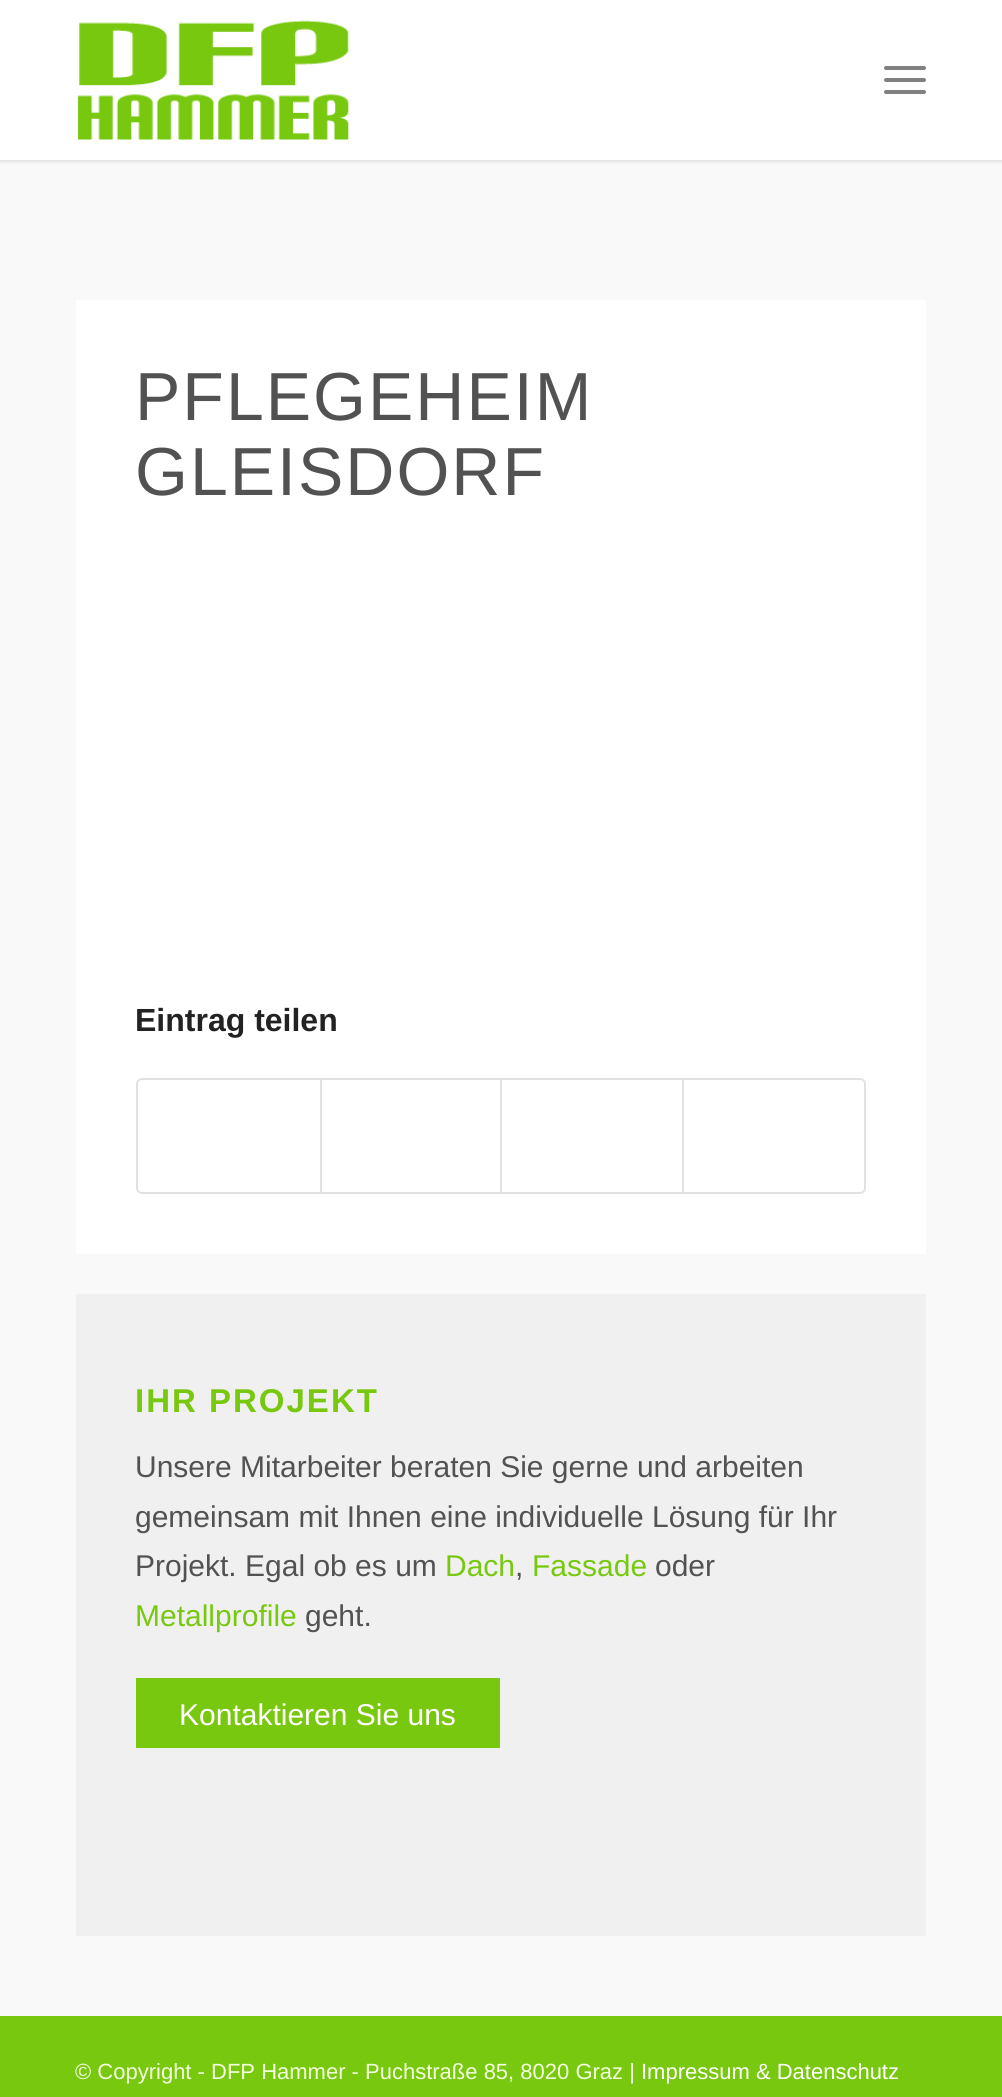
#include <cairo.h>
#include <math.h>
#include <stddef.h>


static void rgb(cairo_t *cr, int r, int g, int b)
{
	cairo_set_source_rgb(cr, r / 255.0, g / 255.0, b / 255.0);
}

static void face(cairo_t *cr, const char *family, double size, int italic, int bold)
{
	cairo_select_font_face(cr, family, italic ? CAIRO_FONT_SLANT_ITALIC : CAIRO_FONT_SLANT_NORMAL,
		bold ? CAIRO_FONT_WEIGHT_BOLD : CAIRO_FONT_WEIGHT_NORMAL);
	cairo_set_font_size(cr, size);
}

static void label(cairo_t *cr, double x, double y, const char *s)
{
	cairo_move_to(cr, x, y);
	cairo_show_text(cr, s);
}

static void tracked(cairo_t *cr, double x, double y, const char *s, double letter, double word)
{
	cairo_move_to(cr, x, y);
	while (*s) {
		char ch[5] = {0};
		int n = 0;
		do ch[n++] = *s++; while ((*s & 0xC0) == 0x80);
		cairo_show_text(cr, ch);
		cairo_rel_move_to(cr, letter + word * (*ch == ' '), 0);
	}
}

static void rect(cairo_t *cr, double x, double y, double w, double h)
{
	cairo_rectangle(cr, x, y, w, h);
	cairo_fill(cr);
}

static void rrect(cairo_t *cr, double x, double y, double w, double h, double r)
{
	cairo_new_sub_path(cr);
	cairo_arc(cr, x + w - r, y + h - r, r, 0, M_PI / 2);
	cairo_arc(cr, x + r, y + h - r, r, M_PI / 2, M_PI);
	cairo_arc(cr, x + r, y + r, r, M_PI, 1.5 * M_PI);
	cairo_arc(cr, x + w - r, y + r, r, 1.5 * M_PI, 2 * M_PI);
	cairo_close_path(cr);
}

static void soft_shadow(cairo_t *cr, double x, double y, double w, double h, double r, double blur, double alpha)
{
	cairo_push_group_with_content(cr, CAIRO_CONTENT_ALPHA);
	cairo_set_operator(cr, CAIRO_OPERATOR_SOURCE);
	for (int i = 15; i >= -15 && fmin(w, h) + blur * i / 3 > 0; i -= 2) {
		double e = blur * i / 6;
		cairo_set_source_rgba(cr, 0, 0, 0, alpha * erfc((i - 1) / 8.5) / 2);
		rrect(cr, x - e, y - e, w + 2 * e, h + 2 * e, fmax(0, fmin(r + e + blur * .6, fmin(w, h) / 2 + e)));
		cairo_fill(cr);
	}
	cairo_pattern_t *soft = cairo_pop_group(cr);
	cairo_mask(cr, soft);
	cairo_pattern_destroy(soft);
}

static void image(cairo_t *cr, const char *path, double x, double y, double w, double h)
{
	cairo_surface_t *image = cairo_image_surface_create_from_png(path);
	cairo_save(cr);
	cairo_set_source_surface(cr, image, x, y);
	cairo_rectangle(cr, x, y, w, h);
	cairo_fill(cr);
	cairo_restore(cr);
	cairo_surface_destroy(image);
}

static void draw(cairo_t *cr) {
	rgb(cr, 249, 249, 249);
	cairo_paint(cr);
	rgb(cr, 0, 0, 0);
	soft_shadow(cr, -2, -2, 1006, 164, 0, 2, 0.1);
	rgb(cr, 255, 255, 255);
	rect(cr, 0, 0, 1002, 160);
	image(cr, "image0.png", 78, 20, 271, 120);
	rgb(cr, 128, 128, 128);
	rrect(cr, 884, 78, 42, 4, 2);
	cairo_fill(cr);
	rrect(cr, 884, 66, 42, 4, 2);
	cairo_fill(cr);
	rrect(cr, 884, 90, 42, 4, 2);
	cairo_fill(cr);
	rgb(cr, 255, 255, 255);
	rect(cr, 76, 300, 850, 954);
	face(cr, "Liberation Sans", 68, 0, 0);
	rgb(cr, 82, 82, 82);
	tracked(cr, 135, 420, "PFLEGEHEIM", 2, 0);
	tracked(cr, 135, 495, "GLEISDORF", 2, 0);
	face(cr, "Liberation Sans", 32, 0, 1);
	rgb(cr, 34, 34, 34);
	label(cr, 135, 1031, "Eintrag teilen");
	rrect(cr, 137, 1079, 728, 114, 5);
	rgb(cr, 225, 225, 225);
	cairo_stroke(cr);
	rect(cr, 320, 1080, 2, 112);
	rect(cr, 500, 1080, 2, 112);
	rect(cr, 682, 1080, 2, 112);
	rgb(cr, 240, 240, 240);
	rect(cr, 76, 1294, 850, 642);
	face(cr, "Liberation Sans", 33, 0, 1);
	rgb(cr, 120, 200, 15);
	tracked(cr, 135, 1412, "IHR PROJEKT", 2, 0);
	face(cr, "Liberation Sans", 30, 0, 0);
	rgb(cr, 82, 82, 82);
	label(cr, 135, 1477, "Unsere Mitarbeiter beraten Sie gerne und arbeiten");
	label(cr, 135, 1527, "gemeinsam mit Ihnen eine individuelle Lösung für Ihr");
	label(cr, 135, 1576, "Projekt. Egal ob es um");
	rgb(cr, 120, 200, 15);
	label(cr, 445, 1576, "Dach");
	rgb(cr, 82, 82, 82);
	label(cr, 515, 1576, ",");
	rgb(cr, 120, 200, 15);
	label(cr, 532, 1576, "Fassade");
	rgb(cr, 82, 82, 82);
	label(cr, 655, 1576, "oder");
	rgb(cr, 120, 200, 15);
	label(cr, 135, 1626, "Metallprofile");
	rgb(cr, 82, 82, 82);
	label(cr, 305, 1626, "geht.");
	rgb(cr, 120, 200, 15);
	rect(cr, 136, 1678, 364, 70);
	rgb(cr, 255, 255, 255);
	label(cr, 179, 1725, "Kontaktieren Sie uns");
	rgb(cr, 120, 200, 15);
	rect(cr, 0, 2016, 1002, 81);
	face(cr, "Liberation Sans", 22, 0, 0);
	rgb(cr, 243, 255, 222);
	label(cr, 75, 2079, "© Copyright - DFP Hammer - Puchstraße 85, 8020 Graz |");
	rgb(cr, 255, 255, 255);
	label(cr, 641, 2079, "Impressum & Datenschutz");
}

int main(void) {
	cairo_surface_t *surface = cairo_image_surface_create(CAIRO_FORMAT_RGB24, 1002, 2097);
	cairo_t *cr = cairo_create(surface);
	cairo_font_options_t *options = cairo_font_options_create();
	cairo_font_options_set_hint_metrics(options, CAIRO_HINT_METRICS_OFF);
	cairo_font_options_set_hint_style(options, CAIRO_HINT_STYLE_NONE);
	cairo_set_font_options(cr, options);
	cairo_set_miter_limit(cr, 4);
	draw(cr);
	cairo_surface_write_to_png(surface, "render.png");
	cairo_font_options_destroy(options);
	cairo_destroy(cr);
	cairo_surface_destroy(surface);
	return 0;
}
